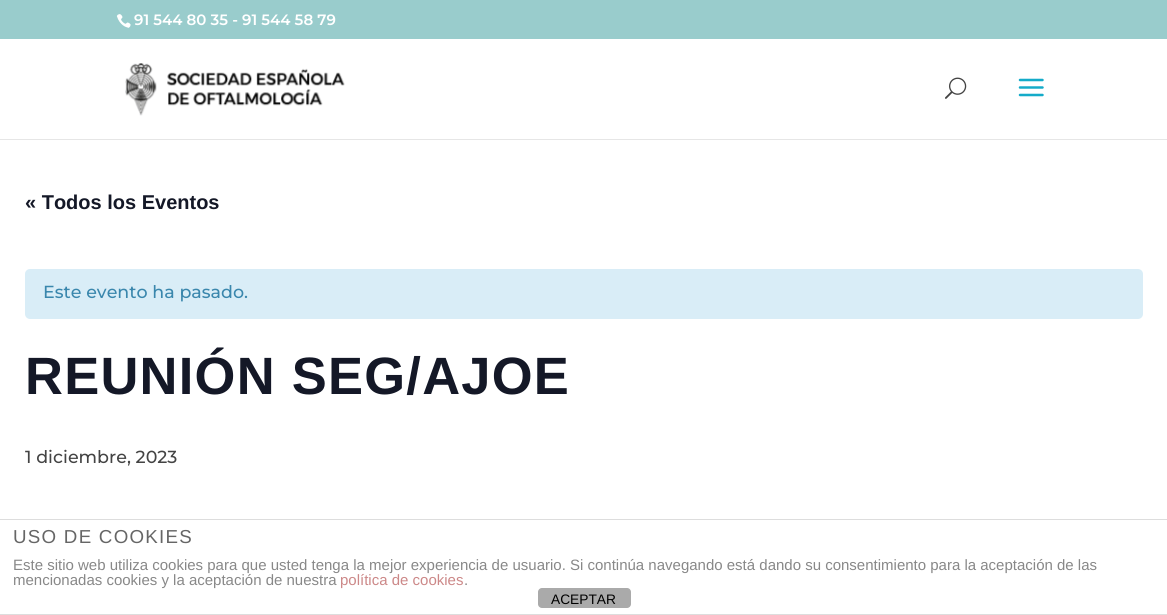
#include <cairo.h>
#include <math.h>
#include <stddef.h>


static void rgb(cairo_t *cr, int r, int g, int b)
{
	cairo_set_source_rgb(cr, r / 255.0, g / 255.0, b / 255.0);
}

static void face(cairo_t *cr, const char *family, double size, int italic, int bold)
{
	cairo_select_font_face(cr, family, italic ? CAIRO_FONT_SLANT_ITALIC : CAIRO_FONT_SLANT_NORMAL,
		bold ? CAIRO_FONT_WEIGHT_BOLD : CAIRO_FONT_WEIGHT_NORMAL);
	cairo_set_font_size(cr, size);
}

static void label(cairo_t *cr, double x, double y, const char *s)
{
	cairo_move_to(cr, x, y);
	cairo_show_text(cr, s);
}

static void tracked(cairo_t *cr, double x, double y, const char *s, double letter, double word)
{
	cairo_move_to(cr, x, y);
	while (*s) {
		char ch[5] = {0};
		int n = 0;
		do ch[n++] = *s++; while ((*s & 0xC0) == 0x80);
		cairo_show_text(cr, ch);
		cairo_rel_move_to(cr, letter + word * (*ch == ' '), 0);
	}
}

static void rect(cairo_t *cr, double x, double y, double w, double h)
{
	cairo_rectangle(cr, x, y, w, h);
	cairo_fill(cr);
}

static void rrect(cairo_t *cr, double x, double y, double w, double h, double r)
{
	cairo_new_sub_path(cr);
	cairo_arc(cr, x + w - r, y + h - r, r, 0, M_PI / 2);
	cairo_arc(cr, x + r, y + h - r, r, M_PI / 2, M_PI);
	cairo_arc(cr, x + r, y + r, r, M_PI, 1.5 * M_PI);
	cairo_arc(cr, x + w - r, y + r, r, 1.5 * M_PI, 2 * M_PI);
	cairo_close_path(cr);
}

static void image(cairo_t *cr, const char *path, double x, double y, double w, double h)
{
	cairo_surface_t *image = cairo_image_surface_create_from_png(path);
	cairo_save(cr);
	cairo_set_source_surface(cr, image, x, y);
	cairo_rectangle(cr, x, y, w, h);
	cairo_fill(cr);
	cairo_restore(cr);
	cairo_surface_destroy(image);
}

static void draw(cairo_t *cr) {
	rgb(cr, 255, 255, 255);
	cairo_paint(cr);
	rgb(cr, 153, 204, 204);
	rect(cr, 0, 0, 1167, 39);
	image(cr, "image0.png", 116, 14, 15, 14);
	face(cr, "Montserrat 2 Thin", 15, 0, 0);
	rgb(cr, 255, 255, 255);
	label(cr, 134, 25, "91 544 80 35 - 91 544 58 79");
	rgb(cr, 230, 230, 230);
	cairo_new_path(cr);
	cairo_move_to(cr, 0, 139);
	cairo_line_to(cr, 0, 140);
	cairo_line_to(cr, 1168, 140);
	cairo_line_to(cr, 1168, 40);
	cairo_line_to(cr, 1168, 139);
	cairo_close_path(cr);
	cairo_fill(cr);
	image(cr, "image1.png", 125, 63, 220, 53);
	image(cr, "image2.png", 945, 77, 22, 22);
	image(cr, "image3.png", 1018, 78, 26, 19);
	face(cr, "Liberation Sans", 20, 0, 1);
	rgb(cr, 20, 24, 39);
	label(cr, 25, 209, "« Todos los Eventos");
	rgb(cr, 217, 237, 247);
	rrect(cr, 25, 269, 1118, 50, 5);
	cairo_fill(cr);
	face(cr, "Montserrat Thin", 17.5, 0, 0);
	rgb(cr, 58, 135, 173);
	label(cr, 43, 298, "Este evento ha pasado.");
	face(cr, "Liberation Sans", 52.5, 0, 1);
	rgb(cr, 20, 24, 39);
	tracked(cr, 25, 394, "REUNIÓN SEG/AJOE", 1.25, 0);
	face(cr, "Montserrat Thin", 17.5, 0, 0);
	rgb(cr, 68, 68, 68);
	label(cr, 25, 463, "1 diciembre, 2023");
	rgb(cr, 221, 221, 221);
	rect(cr, 0, 519, 1167, 1);
	rect(cr, 0, 614, 1167, 1);
	face(cr, "Liberation Sans", 18.75, 0, 0);
	rgb(cr, 102, 102, 102);
	tracked(cr, 13, 543, "USO DE COOKIES", 1.25, 0);
	face(cr, "Liberation Sans", 15, 0, 0);
	rgb(cr, 136, 136, 136);
	label(cr, 13, 570, "Este sitio web utiliza cookies para que usted tenga la mejor experiencia de usuario. Si continúa navegando está dando su consentimiento para la aceptación de las");
	label(cr, 13, 585, "mencionadas cookies y la aceptación de nuestra");
	rgb(cr, 204, 136, 136);
	label(cr, 340, 585, "política de cookies");
	rgb(cr, 136, 136, 136);
	label(cr, 464, 585, ".");
	rgb(cr, 170, 170, 170);
	rrect(cr, 538, 588, 93, 20, 4);
	cairo_fill(cr);
	face(cr, "Liberation Sans", 13.75, 0, 0);
	rgb(cr, 0, 0, 0);
	label(cr, 551, 604, "ACEPTAR");
}

int main(void) {
	cairo_surface_t *surface = cairo_image_surface_create(CAIRO_FORMAT_RGB24, 1167, 615);
	cairo_t *cr = cairo_create(surface);
	cairo_font_options_t *options = cairo_font_options_create();
	cairo_font_options_set_hint_metrics(options, CAIRO_HINT_METRICS_OFF);
	cairo_font_options_set_hint_style(options, CAIRO_HINT_STYLE_NONE);
	cairo_set_font_options(cr, options);
	cairo_set_miter_limit(cr, 4);
	draw(cr);
	cairo_surface_write_to_png(surface, "render.png");
	cairo_font_options_destroy(options);
	cairo_destroy(cr);
	cairo_surface_destroy(surface);
	return 0;
}
